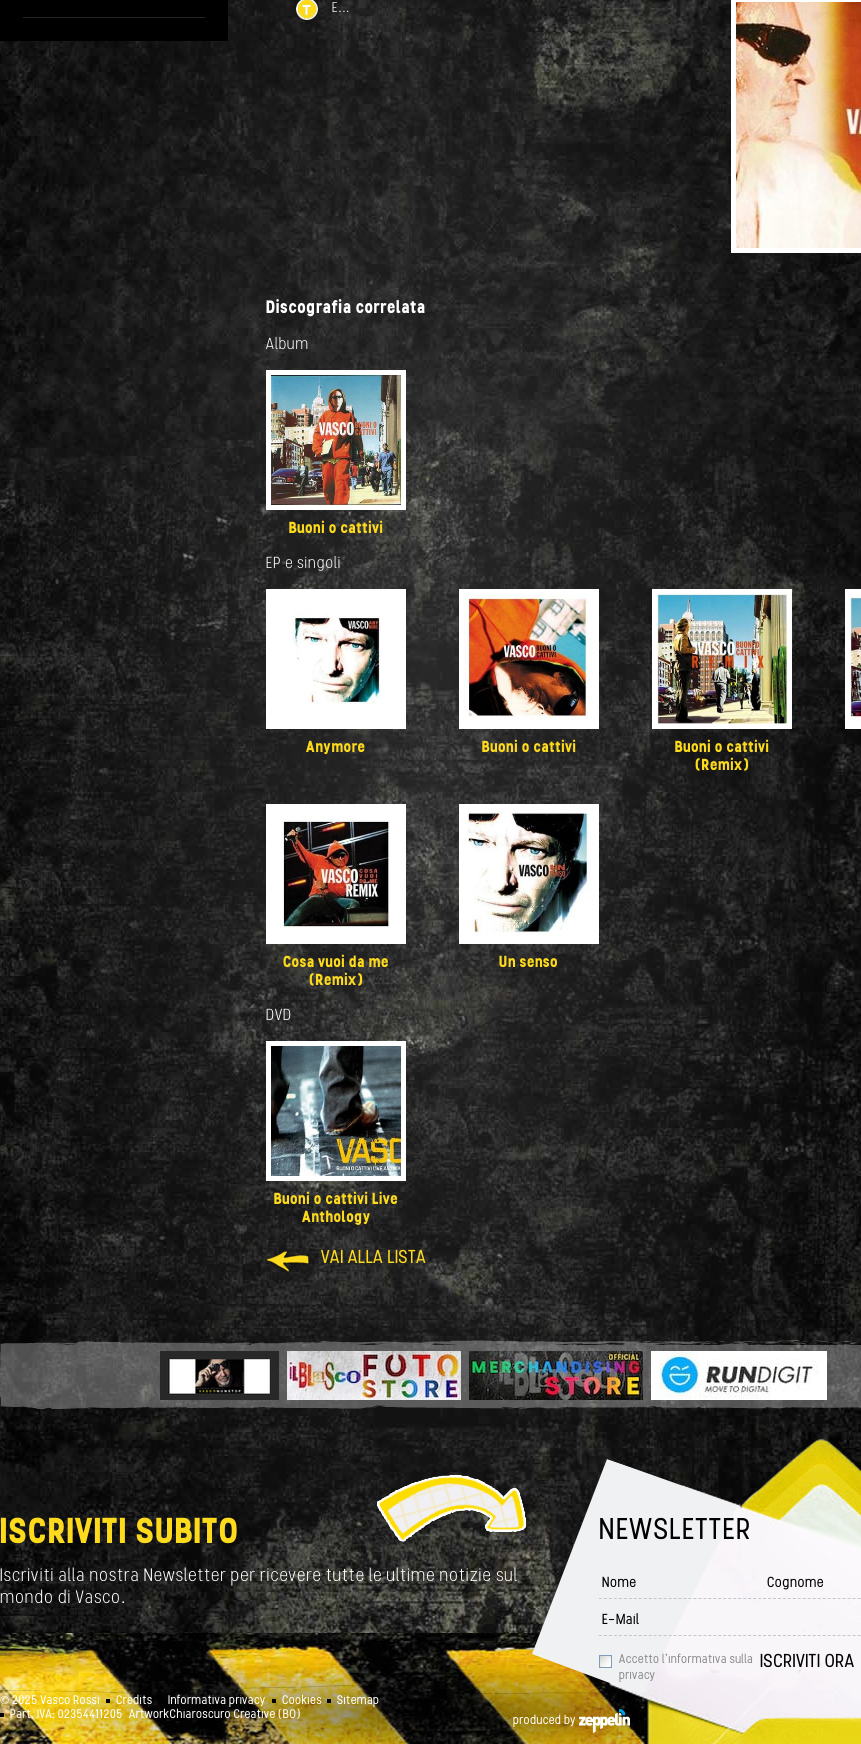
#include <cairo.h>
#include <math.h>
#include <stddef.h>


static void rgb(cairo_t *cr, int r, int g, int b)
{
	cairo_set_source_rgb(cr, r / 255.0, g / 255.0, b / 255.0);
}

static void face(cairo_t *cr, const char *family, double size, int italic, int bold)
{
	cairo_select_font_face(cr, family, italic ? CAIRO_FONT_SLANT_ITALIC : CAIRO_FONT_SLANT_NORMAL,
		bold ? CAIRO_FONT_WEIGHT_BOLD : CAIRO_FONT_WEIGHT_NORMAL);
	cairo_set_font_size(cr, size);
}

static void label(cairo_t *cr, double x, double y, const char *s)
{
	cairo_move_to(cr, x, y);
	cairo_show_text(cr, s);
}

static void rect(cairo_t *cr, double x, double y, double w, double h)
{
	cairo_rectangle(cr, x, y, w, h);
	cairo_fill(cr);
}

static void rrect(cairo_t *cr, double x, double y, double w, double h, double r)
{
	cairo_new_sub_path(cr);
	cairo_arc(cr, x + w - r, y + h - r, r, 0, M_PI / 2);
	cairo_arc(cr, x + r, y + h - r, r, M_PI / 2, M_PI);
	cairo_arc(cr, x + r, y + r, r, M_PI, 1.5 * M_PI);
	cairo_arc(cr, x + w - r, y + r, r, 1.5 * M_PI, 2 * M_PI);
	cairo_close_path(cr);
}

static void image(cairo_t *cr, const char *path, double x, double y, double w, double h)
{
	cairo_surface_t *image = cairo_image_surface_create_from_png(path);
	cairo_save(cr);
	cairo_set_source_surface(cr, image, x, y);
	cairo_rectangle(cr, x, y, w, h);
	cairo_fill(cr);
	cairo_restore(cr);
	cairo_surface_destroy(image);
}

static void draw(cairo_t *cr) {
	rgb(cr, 255, 255, 255);
	cairo_paint(cr);
	image(cr, "image0.png", 0, 0, 861, 1633);
	rgb(cr, 0, 0, 0);
	rect(cr, 0, 0, 228, 41);
	rgb(cr, 38, 38, 38);
	rect(cr, 23, 17, 182, 1);
	image(cr, "image1.png", 296, 0, 22, 20);
	face(cr, "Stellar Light", 14, 0, 0);
	rgb(cr, 255, 255, 255);
	label(cr, 332, 12, "E...");
	rect(cr, 731, 0, 130, 253);
	image(cr, "image2.png", 736, 2, 125, 246);
	face(cr, "Stellar", 18, 0, 1);
	label(cr, 266, 313, "Discografia correlata");
	face(cr, "Stellar Light", 16, 0, 0);
	label(cr, 266, 349, "Album");
	rect(cr, 266, 370, 140, 140);
	image(cr, "image3.png", 271, 375, 130, 130);
	face(cr, "Stellar", 16, 0, 1);
	rgb(cr, 253, 218, 27);
	label(cr, 289, 533, "Buoni o cattivi");
	face(cr, "Stellar Light", 16, 0, 0);
	rgb(cr, 255, 255, 255);
	label(cr, 266, 568, "EP e singoli");
	rect(cr, 845, 589, 16, 140);
	image(cr, "image4.png", 850, 594, 11, 127);
	rect(cr, 266, 589, 140, 140);
	image(cr, "image5.png", 291, 611, 90, 93);
	face(cr, "Stellar", 16, 0, 1);
	rgb(cr, 253, 218, 27);
	label(cr, 306, 752, "Anymore");
	rgb(cr, 255, 255, 255);
	rect(cr, 459, 589, 140, 140);
	image(cr, "image6.png", 464, 594, 127, 127);
	rgb(cr, 253, 218, 27);
	label(cr, 482, 752, "Buoni o cattivi");
	rgb(cr, 255, 255, 255);
	rect(cr, 652, 589, 140, 140);
	image(cr, "image7.png", 657, 594, 130, 130);
	rgb(cr, 253, 218, 27);
	label(cr, 675, 752, "Buoni o cattivi");
	label(cr, 695, 770, "(Remix)");
	rgb(cr, 255, 255, 255);
	rect(cr, 266, 804, 140, 140);
	image(cr, "image8.png", 280, 817, 110, 111);
	rgb(cr, 253, 218, 27);
	label(cr, 283, 967, "Cosa vuoi da me");
	label(cr, 309, 985, "(Remix)");
	rgb(cr, 255, 255, 255);
	rect(cr, 459, 804, 140, 140);
	image(cr, "image9.png", 464, 809, 127, 127);
	rgb(cr, 253, 218, 27);
	label(cr, 499, 967, "Un senso");
	face(cr, "Stellar Light", 16, 0, 0);
	rgb(cr, 255, 255, 255);
	label(cr, 266, 1020, "DVD");
	rect(cr, 266, 1041, 140, 140);
	image(cr, "image10.png", 271, 1046, 130, 130);
	face(cr, "Stellar", 16, 0, 1);
	rgb(cr, 253, 218, 27);
	label(cr, 274, 1204, "Buoni o cattivi Live");
	label(cr, 302, 1222, "Anthology");
	image(cr, "image11.png", 267, 1251, 43, 21);
	face(cr, "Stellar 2", 18, 0, 1);
	label(cr, 321, 1263, "VAI ALLA LISTA");
	image(cr, "image12.png", 0, 1633, 649, 111);
	image(cr, "image13.png", 0, 1340, 861, 69);
	image(cr, "image14.png", 160, 1351, 119, 49);
	image(cr, "image15.png", 287, 1351, 174, 49);
	image(cr, "image16.png", 469, 1351, 174, 49);
	image(cr, "image17.png", 651, 1351, 176, 49);
	image(cr, "image18.png", 376, 1474, 152, 70);
	face(cr, "Stellar", 36, 0, 1);
	label(cr, 0, 1543, "ISCRIVITI SUBITO");
	face(cr, "Stellar Light", 18, 0, 0);
	rgb(cr, 255, 255, 255);
	label(cr, 0, 1581, "Iscriviti alla nostra Newsletter per ricevere tutte le ultime notizie sul");
	label(cr, 0, 1603, "mondo di Vasco.");
	image(cr, "image19.png", 532, 1439, 329, 305);
	face(cr, "Stellar", 30, 0, 0);
	rgb(cr, 0, 0, 0);
	label(cr, 599, 1539, "NEWSLETTER");
	cairo_new_path(cr);
	cairo_move_to(cr, 599, 1598.5);
	cairo_line_to(cr, 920, 1598.5);
	rgb(cr, 197, 198, 201);
	cairo_set_line_width(cr, 1);
	cairo_set_dash(cr, (double[]){3, 1.97}, 2, 0);
	cairo_stroke(cr);
	face(cr, "Stellar 2", 14, 0, 1);
	rgb(cr, 0, 0, 0);
	label(cr, 602, 1587, "Nome");
	label(cr, 767, 1587, "Cognome");
	cairo_new_path(cr);
	cairo_move_to(cr, 599, 1635.5);
	cairo_line_to(cr, 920, 1635.5);
	rgb(cr, 197, 198, 201);
	cairo_stroke(cr);
	rgb(cr, 0, 0, 0);
	label(cr, 602, 1624, "E-Mail");
	image(cr, "image20.png", 599, 1655, 13, 13);
	rrect(cr, 599.5, 1655.5, 12, 12, 1.5);
	rgb(cr, 127, 157, 185);
	cairo_set_dash(cr, NULL, 0, 0);
	cairo_stroke(cr);
	face(cr, "Stellar 2", 12, 0, 1);
	rgb(cr, 141, 141, 141);
	label(cr, 619, 1663, "Accetto l’informativa sulla");
	label(cr, 619, 1679, "privacy");
	face(cr, "Stellar 2", 18, 0, 1);
	rgb(cr, 0, 0, 0);
	label(cr, 760, 1667, "ISCRIVITI ORA");
	image(cr, "image21.png", 0, 1684, 601, 11);
	face(cr, "Liberation Serif", 12, 0, 1);
	rgb(cr, 255, 255, 255);
	label(cr, 0, 1704, "©");
	face(cr, "Stellar 2", 12, 0, 1);
	label(cr, 12, 1704, "2025 Vasco Rossi");
	rgb(cr, 0, 0, 0);
	rect(cr, 106, 1699, 4, 4);
	rgb(cr, 255, 255, 255);
	label(cr, 116, 1704, "Credits");
	label(cr, 168, 1704, "Informativa privacy");
	rgb(cr, 0, 0, 0);
	rect(cr, 272, 1699, 4, 4);
	rgb(cr, 255, 255, 255);
	label(cr, 282, 1704, "Cookies");
	rgb(cr, 0, 0, 0);
	rect(cr, 327, 1699, 4, 4);
	rgb(cr, 255, 255, 255);
	label(cr, 337, 1704, "Sitemap");
	rgb(cr, 0, 0, 0);
	rect(cr, 0, 1713, 4, 4);
	rgb(cr, 255, 255, 255);
	label(cr, 10, 1718, "Part. IVA: 02354411205");
	label(cr, 129, 1718, "ArtworkChiaroscuro Creative (BO)");
	label(cr, 513, 1724, "produced by");
	image(cr, "image22.png", 579, 1709, 51, 24);
}

int main(void) {
	cairo_surface_t *surface = cairo_image_surface_create(CAIRO_FORMAT_RGB24, 861, 1744);
	cairo_t *cr = cairo_create(surface);
	cairo_font_options_t *options = cairo_font_options_create();
	cairo_font_options_set_hint_metrics(options, CAIRO_HINT_METRICS_OFF);
	cairo_font_options_set_hint_style(options, CAIRO_HINT_STYLE_NONE);
	cairo_set_font_options(cr, options);
	cairo_set_miter_limit(cr, 4);
	draw(cr);
	cairo_surface_write_to_png(surface, "render.png");
	cairo_font_options_destroy(options);
	cairo_destroy(cr);
	cairo_surface_destroy(surface);
	return 0;
}
